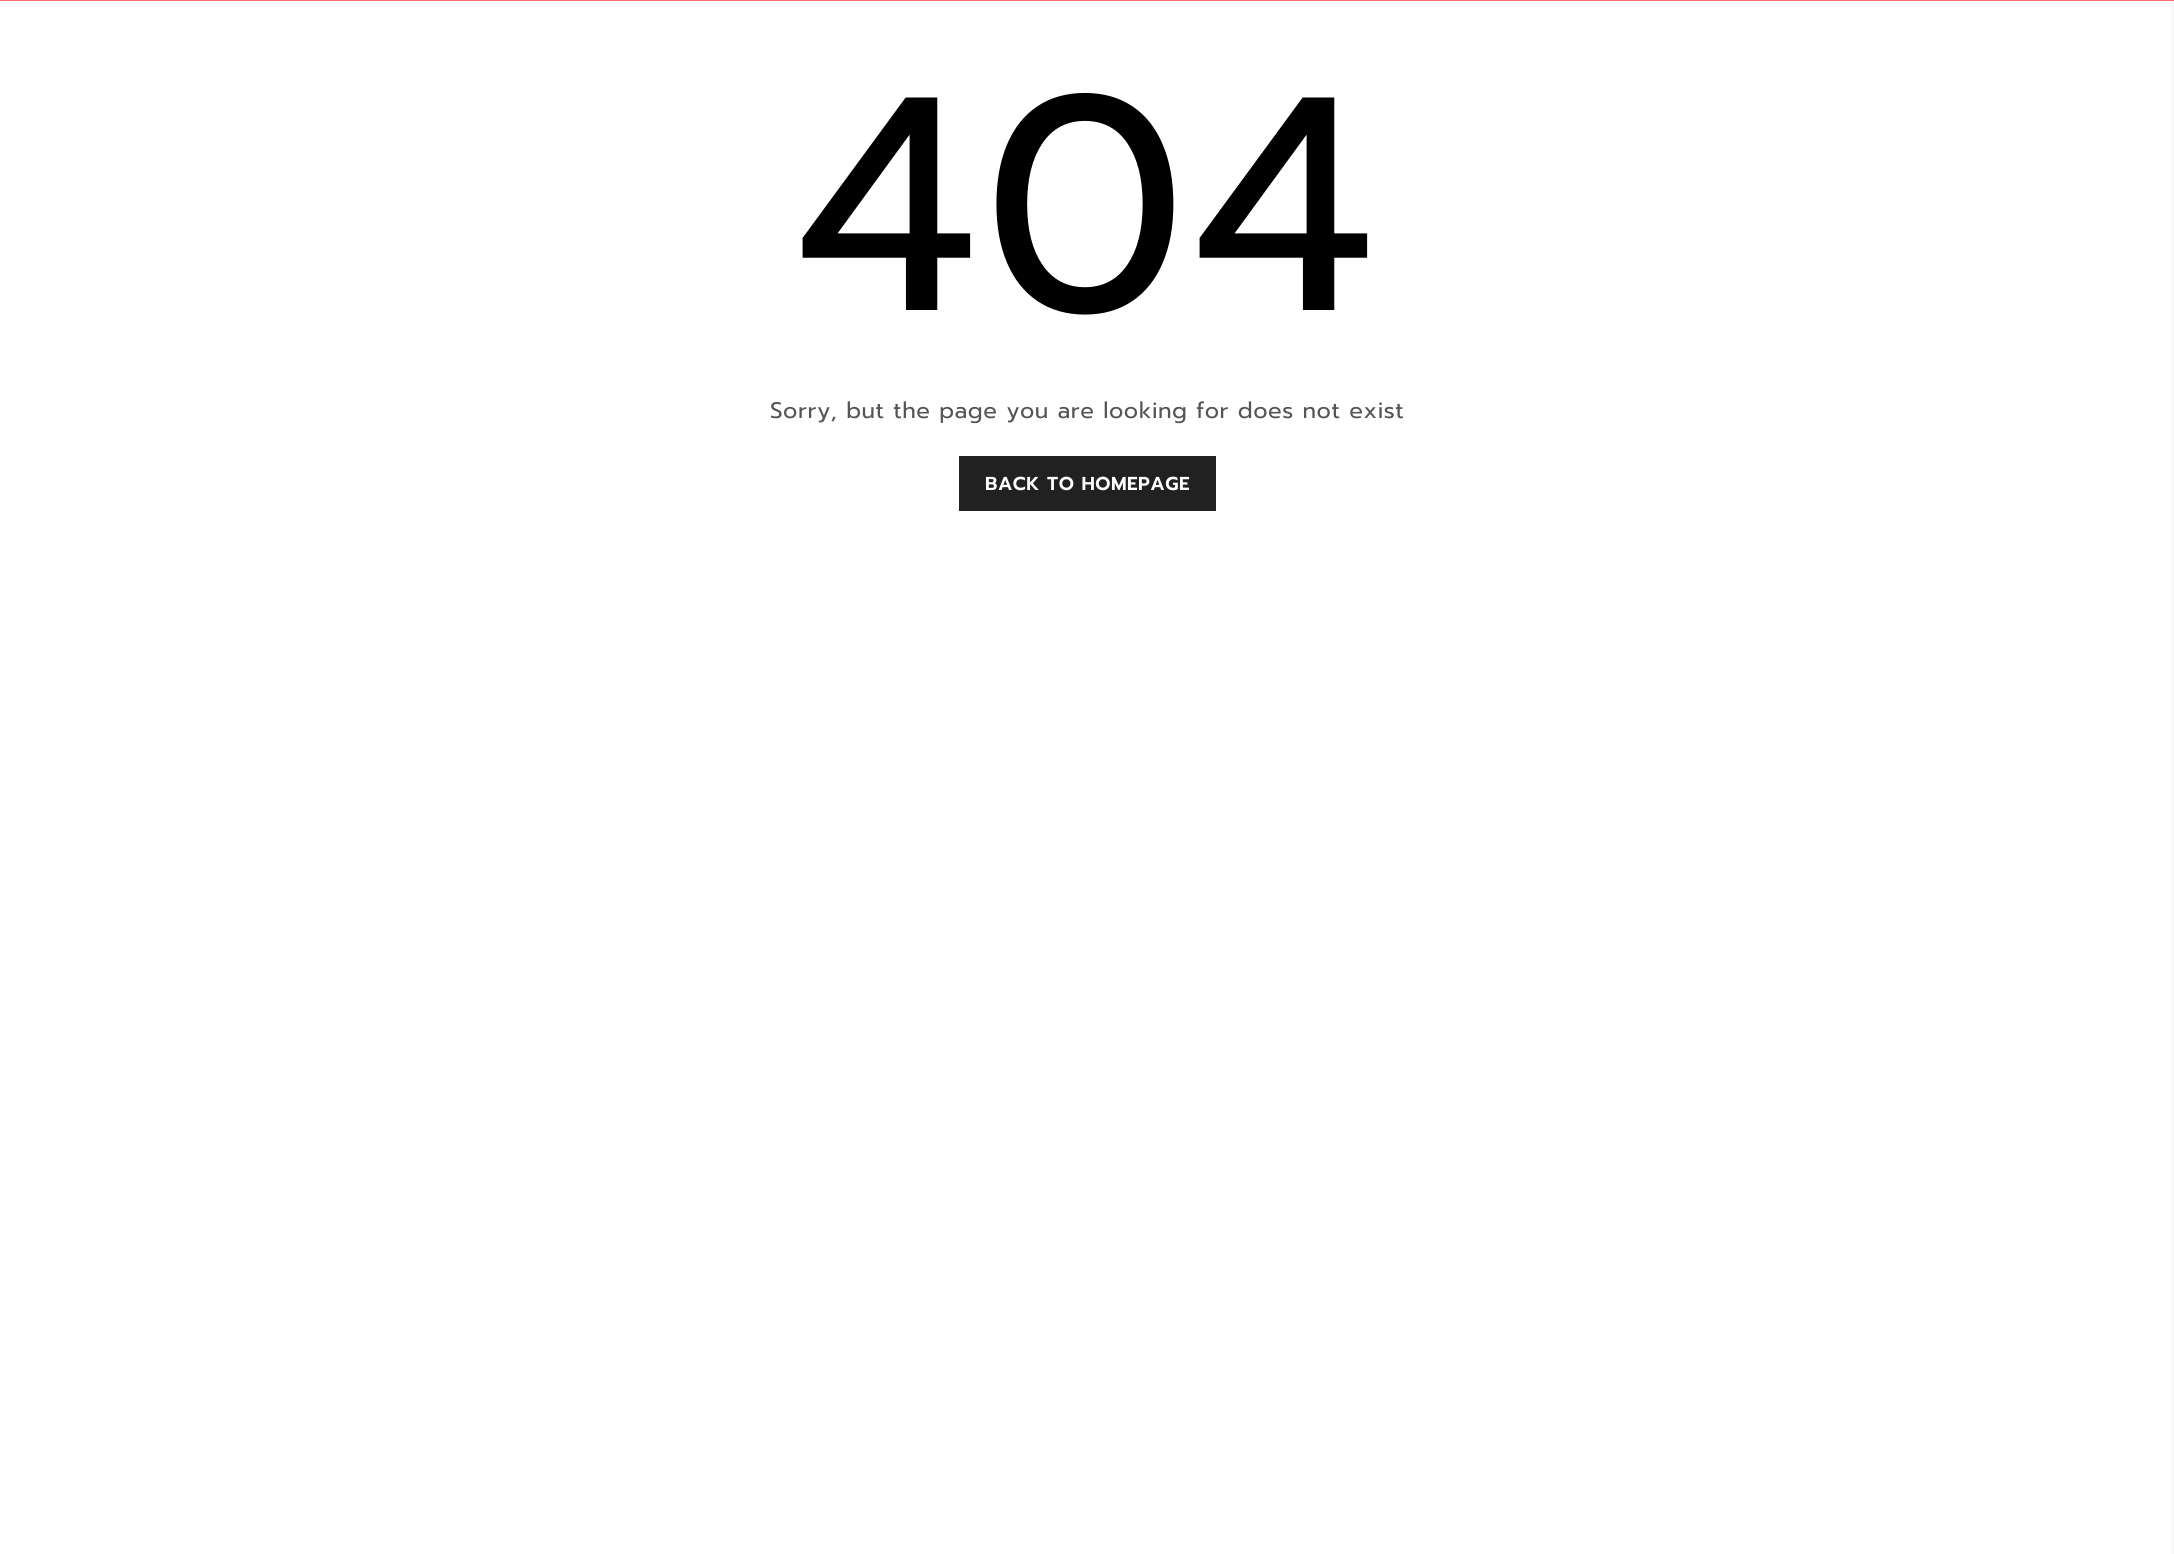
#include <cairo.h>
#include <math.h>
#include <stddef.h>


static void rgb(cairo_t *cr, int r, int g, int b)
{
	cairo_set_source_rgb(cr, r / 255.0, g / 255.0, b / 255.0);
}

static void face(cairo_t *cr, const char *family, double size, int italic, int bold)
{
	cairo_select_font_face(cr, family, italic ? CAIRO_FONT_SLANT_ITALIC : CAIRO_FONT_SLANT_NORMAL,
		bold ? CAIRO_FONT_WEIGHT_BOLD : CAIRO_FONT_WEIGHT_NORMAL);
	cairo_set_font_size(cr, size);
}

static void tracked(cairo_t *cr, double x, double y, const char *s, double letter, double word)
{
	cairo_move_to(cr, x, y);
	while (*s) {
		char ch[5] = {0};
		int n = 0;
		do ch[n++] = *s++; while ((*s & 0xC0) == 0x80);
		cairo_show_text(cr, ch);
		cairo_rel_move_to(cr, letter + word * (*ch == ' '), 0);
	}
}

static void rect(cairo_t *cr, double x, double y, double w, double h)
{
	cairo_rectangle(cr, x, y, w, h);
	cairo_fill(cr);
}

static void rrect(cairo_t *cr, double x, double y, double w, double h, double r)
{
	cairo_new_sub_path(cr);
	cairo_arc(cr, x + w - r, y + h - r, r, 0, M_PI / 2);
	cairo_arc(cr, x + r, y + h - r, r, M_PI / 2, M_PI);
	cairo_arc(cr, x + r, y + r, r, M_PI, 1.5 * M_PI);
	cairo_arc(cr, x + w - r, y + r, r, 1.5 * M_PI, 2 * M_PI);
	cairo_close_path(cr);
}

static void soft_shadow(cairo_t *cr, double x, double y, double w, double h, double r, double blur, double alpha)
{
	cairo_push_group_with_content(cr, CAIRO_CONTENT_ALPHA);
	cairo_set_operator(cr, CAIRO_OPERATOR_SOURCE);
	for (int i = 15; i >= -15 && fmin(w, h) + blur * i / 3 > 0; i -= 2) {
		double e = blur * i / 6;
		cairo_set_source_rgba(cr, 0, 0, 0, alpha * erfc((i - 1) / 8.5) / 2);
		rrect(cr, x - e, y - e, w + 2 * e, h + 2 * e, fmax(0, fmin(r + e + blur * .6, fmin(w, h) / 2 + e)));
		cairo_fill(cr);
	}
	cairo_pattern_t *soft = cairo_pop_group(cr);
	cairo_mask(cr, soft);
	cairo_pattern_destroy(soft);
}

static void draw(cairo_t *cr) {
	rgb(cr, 255, 255, 255);
	cairo_paint(cr);
	rgb(cr, 248, 107, 115);
	rect(cr, 0, 0, 2174, 1);
	face(cr, "Prompt", 304, 0, 0);
	rgb(cr, 0, 0, 0);
	tracked(cr, 795, 310, "404", 5, 0);
	face(cr, "Prompt", 22.5, 0, 0);
	rgb(cr, 85, 85, 85);
	tracked(cr, 770, 418, "Sorry, but the page you are looking for does not exist", 0.5, 0);
	rgb(cr, 33, 33, 33);
	rect(cr, 959, 456, 257, 55);
	face(cr, "Prompt SemiBold", 18.75, 0, 0);
	rgb(cr, 255, 255, 255);
	tracked(cr, 985, 490, "BACK TO HOMEPAGE", 0.5, 0);
	rgb(cr, 0, 0, 0);
	soft_shadow(cr, 2174, 0, 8, 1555, 0, 2.5, 0.1);
}

int main(void) {
	cairo_surface_t *surface = cairo_image_surface_create(CAIRO_FORMAT_RGB24, 2174, 1554);
	cairo_t *cr = cairo_create(surface);
	cairo_font_options_t *options = cairo_font_options_create();
	cairo_font_options_set_hint_metrics(options, CAIRO_HINT_METRICS_OFF);
	cairo_font_options_set_hint_style(options, CAIRO_HINT_STYLE_NONE);
	cairo_set_font_options(cr, options);
	cairo_set_miter_limit(cr, 4);
	draw(cr);
	cairo_surface_write_to_png(surface, "render.png");
	cairo_font_options_destroy(options);
	cairo_destroy(cr);
	cairo_surface_destroy(surface);
	return 0;
}
